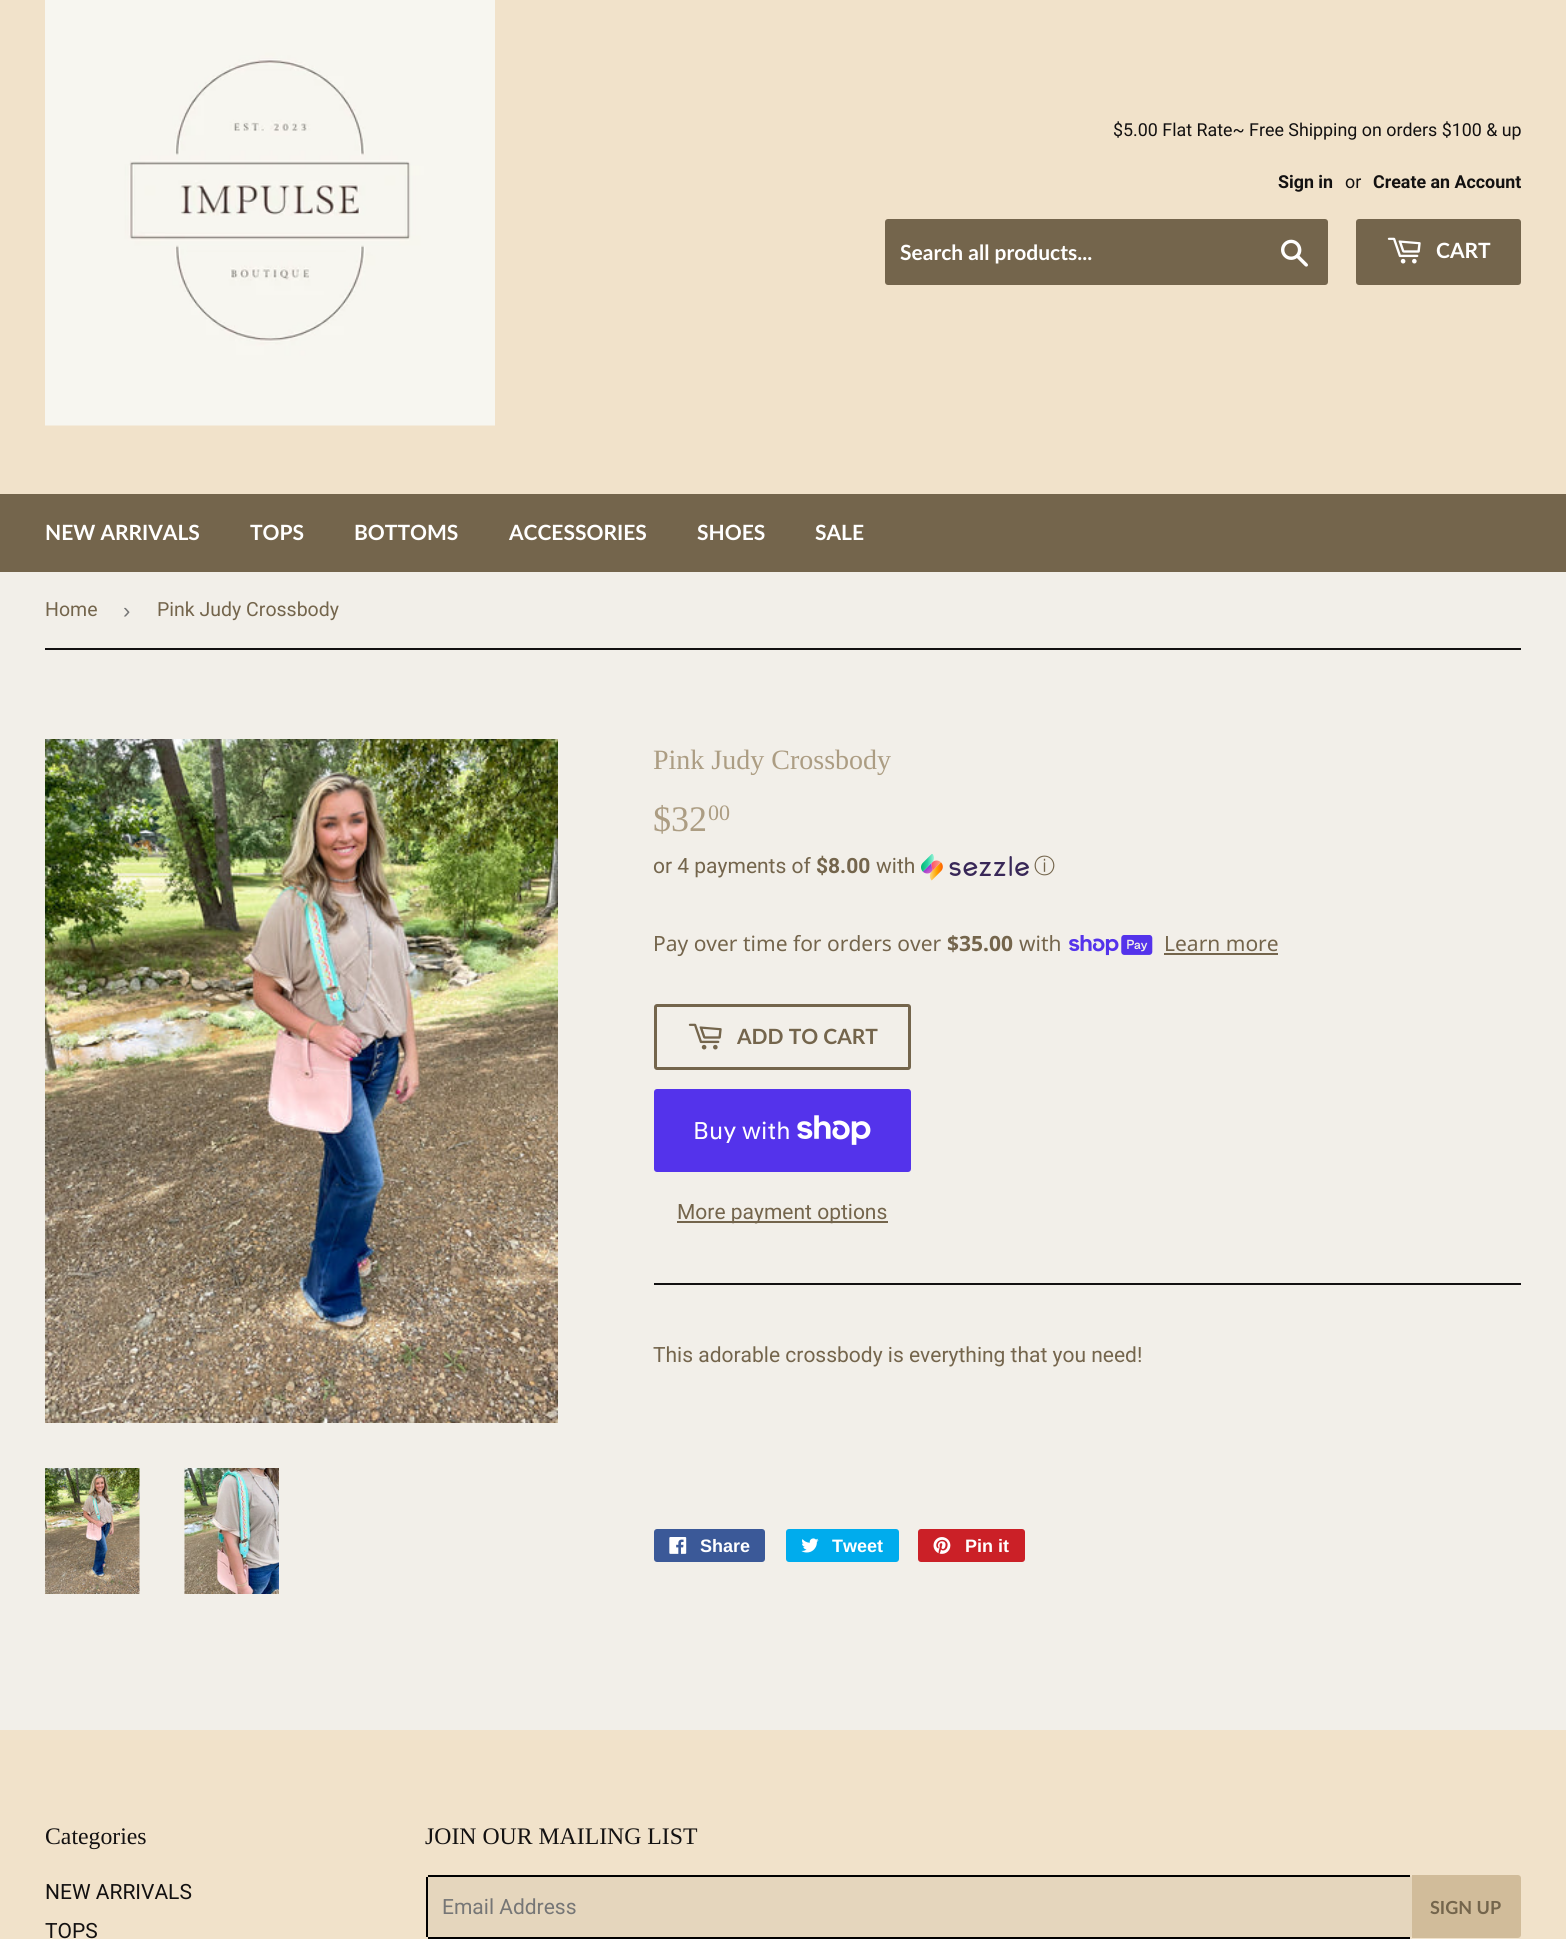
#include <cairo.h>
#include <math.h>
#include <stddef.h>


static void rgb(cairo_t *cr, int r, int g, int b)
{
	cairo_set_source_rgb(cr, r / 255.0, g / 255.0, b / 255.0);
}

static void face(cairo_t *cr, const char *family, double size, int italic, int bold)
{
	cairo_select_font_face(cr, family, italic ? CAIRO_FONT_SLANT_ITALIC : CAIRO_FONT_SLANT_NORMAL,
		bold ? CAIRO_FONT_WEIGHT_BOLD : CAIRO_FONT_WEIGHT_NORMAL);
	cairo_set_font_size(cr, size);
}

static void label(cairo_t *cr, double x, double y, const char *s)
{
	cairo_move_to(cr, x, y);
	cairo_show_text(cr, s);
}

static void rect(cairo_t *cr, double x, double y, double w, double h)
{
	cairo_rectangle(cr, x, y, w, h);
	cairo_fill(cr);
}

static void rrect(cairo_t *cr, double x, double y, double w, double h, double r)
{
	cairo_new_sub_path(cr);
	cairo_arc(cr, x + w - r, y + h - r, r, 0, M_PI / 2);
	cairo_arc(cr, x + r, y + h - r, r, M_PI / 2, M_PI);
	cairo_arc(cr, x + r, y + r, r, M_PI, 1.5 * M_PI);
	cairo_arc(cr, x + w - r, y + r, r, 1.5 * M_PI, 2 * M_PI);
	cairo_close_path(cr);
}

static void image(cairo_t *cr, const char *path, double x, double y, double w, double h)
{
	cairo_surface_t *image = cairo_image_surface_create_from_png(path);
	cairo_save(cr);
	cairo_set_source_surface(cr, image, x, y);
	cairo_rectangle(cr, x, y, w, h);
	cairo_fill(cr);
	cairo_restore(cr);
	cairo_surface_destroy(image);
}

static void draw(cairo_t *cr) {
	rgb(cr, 242, 239, 233);
	cairo_paint(cr);
	rgb(cr, 241, 226, 202);
	rect(cr, 0, 0, 1566, 494);
	image(cr, "image0.png", 45, 0, 450, 426);
	face(cr, "Roboto", 17.85, 0, 0);
	rgb(cr, 19, 17, 17);
	label(cr, 1113, 136, "$5.00 Flat Rate~ Free Shipping on orders $100 & up");
	face(cr, "Roboto", 17.85, 0, 1);
	label(cr, 1278, 188, "Sign in");
	face(cr, "Roboto", 17.85, 0, 0);
	label(cr, 1345, 188, "or");
	face(cr, "Roboto", 17.85, 0, 1);
	label(cr, 1373, 188, "Create an Account");
	rgb(cr, 116, 101, 76);
	rrect(cr, 885, 219, 443, 66, 3);
	cairo_fill(cr);
	face(cr, "Lato", 21, 0, 1);
	rgb(cr, 255, 255, 255);
	label(cr, 900, 260, "Search all products...");
	image(cr, "image1.png", 1281, 239, 27, 28);
	rgb(cr, 116, 101, 76);
	rrect(cr, 1356, 219, 165, 66, 3);
	cairo_fill(cr);
	image(cr, "image2.png", 1387, 237, 34, 27);
	rgb(cr, 255, 255, 255);
	label(cr, 1436, 258, "CART");
	rgb(cr, 116, 101, 76);
	rect(cr, 0, 494, 1566, 78);
	rgb(cr, 255, 255, 255);
	label(cr, 45, 540, "NEW ARRIVALS");
	label(cr, 250, 540, "TOPS");
	label(cr, 354, 540, "BOTTOMS");
	label(cr, 509, 540, "ACCESSORIES");
	label(cr, 697, 540, "SHOES");
	label(cr, 815, 540, "SALE");
	rgb(cr, 19, 17, 17);
	rect(cr, 45, 648, 1476, 2);
	face(cr, "Roboto", 19.5, 0, 0);
	rgb(cr, 116, 101, 76);
	label(cr, 45, 616, "Home");
	face(cr, "Liberation Sans", 22, 0, 0);
	rgb(cr, 118, 118, 118);
	label(cr, 123, 618, "›");
	face(cr, "Roboto", 19.5, 0, 0);
	rgb(cr, 116, 101, 76);
	label(cr, 157, 616, "Pink Judy Crossbody");
	image(cr, "image3.png", 45, 739, 513, 684);
	image(cr, "image4.png", 45, 1468, 95, 126);
	image(cr, "image5.png", 184, 1468, 95, 126);
	face(cr, "Liberation Serif", 28, 0, 0);
	rgb(cr, 172, 157, 131);
	label(cr, 653, 769, "Pink Judy Crossbody");
	face(cr, "Liberation Serif", 36, 0, 0);
	label(cr, 653, 831, "$32");
	face(cr, "Liberation Serif", 22, 0, 0);
	label(cr, 708, 820, "00");
	face(cr, "Roboto", 21, 0, 0);
	rgb(cr, 116, 101, 76);
	label(cr, 653, 873, "or 4 payments of");
	face(cr, "Roboto", 21, 0, 1);
	label(cr, 816, 873, "$8.00");
	face(cr, "Roboto", 21, 0, 0);
	label(cr, 876, 873, "with");
	image(cr, "image6.png", 921, 854, 108, 27);
	face(cr, "WenQuanYi Zen Hei Medium", 21, 0, 0);
	label(cr, 1034, 873, "ⓘ");
	face(cr, "Noto Sans", 21, 0, 0);
	label(cr, 653, 951, "Pay over time for orders over");
	face(cr, "Noto Sans", 21, 0, 1);
	label(cr, 947, 951, "$35.00");
	face(cr, "Noto Sans", 21, 0, 0);
	label(cr, 1019, 951, "with");
	image(cr, "image7.png", 1069, 935, 84, 21);
	label(cr, 1164, 951, "Learn more");
	rect(cr, 1164, 953, 114, 2);
	rrect(cr, 655.5, 1005.5, 254, 63, 1.5);
	cairo_set_line_width(cr, 3);
	cairo_stroke(cr);
	image(cr, "image8.png", 688, 1023, 34, 27);
	face(cr, "Lato", 21, 0, 1);
	label(cr, 737, 1044, "ADD TO CART");
	rgb(cr, 84, 51, 235);
	rrect(cr, 654, 1089, 257, 83, 3);
	cairo_fill(cr);
	face(cr, "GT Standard", 24, 0, 0);
	rgb(cr, 255, 255, 255);
	label(cr, 693, 1139, "Buy with");
	image(cr, "image9.png", 797, 1115, 74, 30);
	rgb(cr, 116, 101, 76);
	rect(cr, 677, 1221, 211, 2);
	face(cr, "Roboto", 21, 0, 0);
	label(cr, 677, 1219, "More payment options");
	rgb(cr, 19, 17, 17);
	rect(cr, 654, 1283, 867, 2);
	rgb(cr, 116, 101, 76);
	label(cr, 653, 1362, "This adorable crossbody is everything that you need!");
	rgb(cr, 59, 89, 152);
	rrect(cr, 654, 1529, 111, 33, 3);
	cairo_fill(cr);
	image(cr, "image10.png", 669, 1537, 18, 17);
	face(cr, "Liberation Sans", 18, 0, 1);
	rgb(cr, 255, 255, 255);
	label(cr, 700, 1552, "Share");
	rgb(cr, 0, 172, 237);
	rrect(cr, 786, 1529, 113, 33, 3);
	cairo_fill(cr);
	image(cr, "image11.png", 801, 1538, 18, 15);
	rgb(cr, 255, 255, 255);
	label(cr, 832, 1552, "Tweet");
	rgb(cr, 203, 32, 39);
	rrect(cr, 918, 1529, 107, 33, 3);
	cairo_fill(cr);
	image(cr, "image12.png", 933, 1537, 18, 17);
	rgb(cr, 255, 255, 255);
	label(cr, 965, 1552, "Pin it");
	rgb(cr, 241, 226, 202);
	rect(cr, 0, 1730, 1566, 209);
	face(cr, "Liberation Serif", 23.75, 0, 0);
	rgb(cr, 19, 17, 17);
	label(cr, 45, 1844, "Categories");
	face(cr, "Roboto", 21, 0, 0);
	label(cr, 45, 1899, "NEW ARRIVALS");
	label(cr, 45, 1938, "TOPS");
	face(cr, "Liberation Serif", 23.75, 0, 0);
	label(cr, 425, 1844, "JOIN OUR MAILING LIST");
	rgb(cr, 229, 214, 189);
	rrect(cr, 426, 1875, 986, 63, 3);
	cairo_fill(cr);
	rgb(cr, 0, 0, 0);
	rect(cr, 428, 1875, 982, 2);
	rect(cr, 428, 1937, 982, 2);
	rect(cr, 426, 1877, 2, 60);
	face(cr, "Roboto", 21, 0, 0);
	rgb(cr, 118, 118, 118);
	label(cr, 442, 1914, "Email Address");
	rgb(cr, 209, 188, 154);
	cairo_new_path(cr);
	cairo_move_to(cr, 1412, 1875);
	cairo_line_to(cr, 1518, 1875);
	cairo_curve_to(cr, 1519.5, 1875, 1521, 1876.5, 1521, 1878);
	cairo_line_to(cr, 1521, 1935);
	cairo_curve_to(cr, 1521, 1936.5, 1519.5, 1938, 1518, 1938);
	cairo_line_to(cr, 1412, 1938);
	cairo_close_path(cr);
	cairo_fill(cr);
	face(cr, "Lato", 18, 0, 1);
	rgb(cr, 116, 101, 76);
	label(cr, 1430, 1914, "SIGN UP");
}

int main(void) {
	cairo_surface_t *surface = cairo_image_surface_create(CAIRO_FORMAT_RGB24, 1566, 1939);
	cairo_t *cr = cairo_create(surface);
	cairo_font_options_t *options = cairo_font_options_create();
	cairo_font_options_set_hint_metrics(options, CAIRO_HINT_METRICS_OFF);
	cairo_font_options_set_hint_style(options, CAIRO_HINT_STYLE_NONE);
	cairo_set_font_options(cr, options);
	cairo_set_miter_limit(cr, 4);
	draw(cr);
	cairo_surface_write_to_png(surface, "render.png");
	cairo_font_options_destroy(options);
	cairo_destroy(cr);
	cairo_surface_destroy(surface);
	return 0;
}
